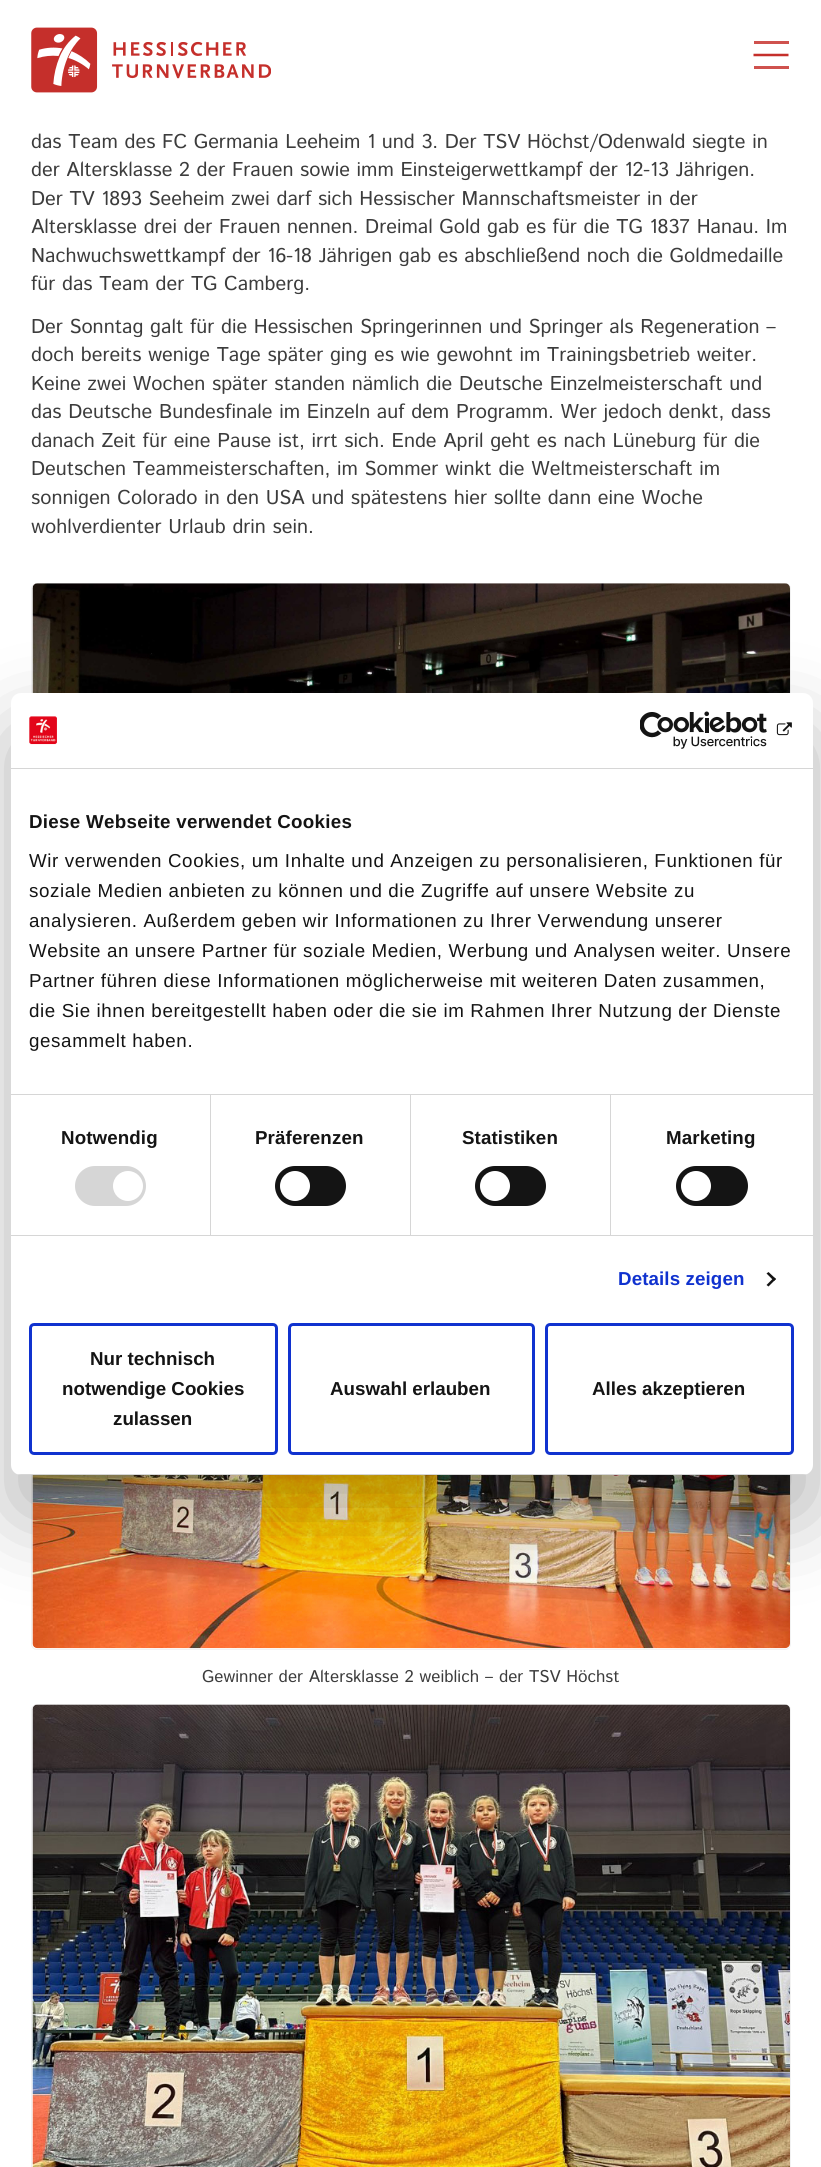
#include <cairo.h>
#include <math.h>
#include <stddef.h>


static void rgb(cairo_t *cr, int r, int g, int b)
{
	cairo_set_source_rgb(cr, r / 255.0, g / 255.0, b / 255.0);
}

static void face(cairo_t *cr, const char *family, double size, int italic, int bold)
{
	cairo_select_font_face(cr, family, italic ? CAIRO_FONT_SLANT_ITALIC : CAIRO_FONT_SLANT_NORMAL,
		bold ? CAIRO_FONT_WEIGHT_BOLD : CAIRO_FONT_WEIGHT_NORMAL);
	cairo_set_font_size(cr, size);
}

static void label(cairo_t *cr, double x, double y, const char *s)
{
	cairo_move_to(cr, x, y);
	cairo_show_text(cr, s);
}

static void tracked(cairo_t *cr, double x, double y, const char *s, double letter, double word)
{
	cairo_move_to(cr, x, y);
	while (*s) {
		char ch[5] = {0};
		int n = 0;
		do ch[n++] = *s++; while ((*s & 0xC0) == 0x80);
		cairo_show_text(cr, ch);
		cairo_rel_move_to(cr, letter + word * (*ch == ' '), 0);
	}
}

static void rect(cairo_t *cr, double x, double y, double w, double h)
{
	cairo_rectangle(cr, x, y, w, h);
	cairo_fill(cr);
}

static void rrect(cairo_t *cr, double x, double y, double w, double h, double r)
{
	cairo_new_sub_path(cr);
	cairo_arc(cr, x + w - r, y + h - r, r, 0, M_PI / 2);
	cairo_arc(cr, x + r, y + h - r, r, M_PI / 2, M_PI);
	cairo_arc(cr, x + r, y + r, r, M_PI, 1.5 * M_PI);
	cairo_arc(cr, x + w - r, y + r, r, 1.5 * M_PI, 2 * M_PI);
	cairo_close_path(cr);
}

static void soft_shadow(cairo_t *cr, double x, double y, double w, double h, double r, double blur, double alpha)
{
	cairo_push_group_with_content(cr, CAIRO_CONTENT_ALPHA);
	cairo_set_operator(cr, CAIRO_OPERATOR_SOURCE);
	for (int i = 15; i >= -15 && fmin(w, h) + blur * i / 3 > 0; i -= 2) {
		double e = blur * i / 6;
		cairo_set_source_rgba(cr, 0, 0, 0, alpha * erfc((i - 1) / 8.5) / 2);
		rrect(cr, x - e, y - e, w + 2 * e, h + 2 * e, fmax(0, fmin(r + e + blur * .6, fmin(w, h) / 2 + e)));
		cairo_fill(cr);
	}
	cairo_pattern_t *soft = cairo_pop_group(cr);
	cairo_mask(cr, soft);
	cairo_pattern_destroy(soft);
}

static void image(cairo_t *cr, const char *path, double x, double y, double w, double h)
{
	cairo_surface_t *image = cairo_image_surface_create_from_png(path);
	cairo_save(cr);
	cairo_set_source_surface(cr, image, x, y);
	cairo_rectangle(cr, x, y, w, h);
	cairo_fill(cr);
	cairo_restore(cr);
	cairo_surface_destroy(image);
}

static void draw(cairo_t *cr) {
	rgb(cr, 255, 255, 255);
	cairo_paint(cr);
	image(cr, "image0.png", 31, 27, 240, 66);
	rgb(cr, 207, 82, 78);
	rect(cr, 754, 41, 35, 3);
	cairo_new_path(cr);
	cairo_move_to(cr, 788.5, 55);
	cairo_line_to(cr, 753.5, 55);
	rgb(cr, 197, 47, 43);
	cairo_set_line_width(cr, 2.5);
	cairo_stroke(cr);
	rgb(cr, 207, 82, 78);
	rect(cr, 754, 66, 35, 3);
	face(cr, "Istok Web", 20, 0, 0);
	rgb(cr, 60, 60, 60);
	label(cr, 31, 148, "das Team des FC Germania Leeheim 1 und 3. Der TSV Höchst/Odenwald siegte in");
	label(cr, 31, 176, "der Altersklasse 2 der Frauen sowie imm Einsteigerwettkampf der 12-13 Jährigen.");
	label(cr, 31, 205, "Der TV 1893 Seeheim zwei darf sich Hessischer Mannschaftsmeister in der");
	label(cr, 31, 233, "Altersklasse drei der Frauen nennen. Dreimal Gold gab es für die TG 1837 Hanau. Im");
	label(cr, 31, 262, "Nachwuchswettkampf der 16-18 Jährigen gab es abschließend noch die Goldmedaille");
	label(cr, 31, 290, "für das Team der TG Camberg.");
	label(cr, 31, 333, "Der Sonntag galt für die Hessischen Springerinnen und Springer als Regeneration –");
	label(cr, 31, 361, "doch bereits wenige Tage später ging es wie gewohnt im Trainingsbetrieb weiter.");
	label(cr, 31, 390, "Keine zwei Wochen später standen nämlich die Deutsche Einzelmeisterschaft und");
	label(cr, 31, 418, "das Deutsche Bundesfinale im Einzeln auf dem Programm. Wer jedoch denkt, dass");
	label(cr, 31, 447, "danach Zeit für eine Pause ist, irrt sich. Ende April geht es nach Lüneburg für die");
	label(cr, 31, 475, "Deutschen Teammeisterschaften, im Sommer winkt die Weltmeisterschaft im");
	label(cr, 31, 504, "sonnigen Colorado in den USA und spätestens hier sollte dann eine Woche");
	label(cr, 31, 533, "wohlverdienter Urlaub drin sein.");
	rrect(cr, 31.5, 583.5, 759, 505, 5.5);
	rgb(cr, 242, 242, 242);
	cairo_set_line_width(cr, 1);
	cairo_stroke(cr);
	image(cr, "image1.png", 32, 583, 758, 110);
	rrect(cr, 31.5, 1144.5, 759, 505, 5.5);
	cairo_stroke(cr);
	image(cr, "image2.png", 32, 1475, 758, 174);
	face(cr, "Istok Web", 17, 0, 0);
	rgb(cr, 60, 60, 60);
	label(cr, 202, 1682, "Gewinner der Altersklasse 2 weiblich – der TSV Höchst");
	rrect(cr, 31.5, 1704.5, 759, 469, 5.5);
	rgb(cr, 242, 242, 242);
	cairo_stroke(cr);
	image(cr, "image3.png", 32, 1704, 758, 463);
	rgb(cr, 0, 0, 0);
	soft_shadow(cr, 11, 733, 802, 782, 10, 42.5, 0.3);
	rgb(cr, 255, 255, 255);
	rrect(cr, 11, 693, 802, 782, 10);
	cairo_fill(cr);
	rgb(cr, 214, 214, 214);
	rect(cr, 11, 768, 802, 1);
	image(cr, "image4.png", 29, 716, 28, 29);
	image(cr, "image5.png", 640, 711, 127, 38);
	image(cr, "image6.png", 776, 722, 16, 14);
	rect(cr, 11, 1094, 802, 1);
	face(cr, "Liberation Sans", 18.75, 0, 1);
	rgb(cr, 20, 20, 20);
	tracked(cr, 29, 828, "Diese Webseite verwendet Cookies", 0.3, 0);
	face(cr, "Liberation Sans", 18.75, 0, 0);
	tracked(cr, 29, 867, "Wir verwenden Cookies, um Inhalte und Anzeigen zu personalisieren, Funktionen für", 0.62, 0);
	tracked(cr, 29, 897, "soziale Medien anbieten zu können und die Zugriffe auf unsere Website zu", 0.62, 0);
	tracked(cr, 29, 927, "analysieren. Außerdem geben wir Informationen zu Ihrer Verwendung unserer", 0.62, 0);
	tracked(cr, 29, 957, "Website an unsere Partner für soziale Medien, Werbung und Analysen weiter. Unsere", 0.62, 0);
	tracked(cr, 29, 987, "Partner führen diese Informationen möglicherweise mit weiteren Daten zusammen,", 0.62, 0);
	tracked(cr, 29, 1017, "die Sie ihnen bereitgestellt haben oder die sie im Rahmen Ihrer Nutzung der Dienste", 0.62, 0);
	tracked(cr, 29, 1047, "gesammelt haben.", 0.62, 0);
	rgb(cr, 214, 214, 214);
	rect(cr, 11, 1235, 802, 1);
	rect(cr, 210, 1095, 1, 140);
	face(cr, "Liberation Sans", 18.75, 0, 1);
	rgb(cr, 20, 20, 20);
	tracked(cr, 61, 1144, "Notwendig", 0.1, 0);
	rgb(cr, 214, 214, 214);
	rrect(cr, 75, 1166, 71, 40, 20);
	cairo_fill(cr);
	rgb(cr, 255, 255, 255);
	cairo_arc(cr, 128, 1186, 15, 0, 2 * M_PI);
	cairo_fill(cr);
	rgb(cr, 214, 214, 214);
	rect(cr, 410, 1095, 1, 140);
	rgb(cr, 20, 20, 20);
	tracked(cr, 255, 1144, "Präferenzen", 0.1, 0);
	rrect(cr, 275, 1166, 71, 40, 20);
	cairo_fill(cr);
	rgb(cr, 255, 255, 255);
	cairo_arc(cr, 295, 1186, 15, 0, 2 * M_PI);
	cairo_fill(cr);
	rgb(cr, 214, 214, 214);
	rect(cr, 610, 1095, 1, 140);
	rgb(cr, 20, 20, 20);
	tracked(cr, 462, 1144, "Statistiken", 0.1, 0);
	rrect(cr, 475, 1166, 71, 40, 20);
	cairo_fill(cr);
	rgb(cr, 255, 255, 255);
	cairo_arc(cr, 495, 1186, 15, 0, 2 * M_PI);
	cairo_fill(cr);
	rgb(cr, 20, 20, 20);
	tracked(cr, 666, 1144, "Marketing", 0.1, 0);
	rrect(cr, 676, 1166, 72, 40, 20);
	cairo_fill(cr);
	rgb(cr, 255, 255, 255);
	cairo_arc(cr, 696, 1186, 15, 0, 2 * M_PI);
	cairo_fill(cr);
	rgb(cr, 16, 50, 207);
	tracked(cr, 618, 1285, "Details zeigen", 0.1, 0);
	rgb(cr, 20, 20, 20);
	cairo_new_path(cr);
	cairo_move_to(cr, 768.5, 1272);
	cairo_line_to(cr, 776, 1279);
	cairo_line_to(cr, 774, 1281);
	cairo_line_to(cr, 766.5, 1273.5);
	cairo_close_path(cr);
	cairo_fill(cr);
	cairo_new_path(cr);
	cairo_move_to(cr, 774, 1277.5);
	cairo_line_to(cr, 776, 1279);
	cairo_line_to(cr, 768.5, 1286.5);
	cairo_line_to(cr, 766.5, 1285);
	cairo_close_path(cr);
	cairo_fill(cr);
	cairo_save(cr);
	rrect(cr, 11, 693, 802, 782, 10);
	cairo_clip(cr);
	rgb(cr, 214, 214, 214);
	rect(cr, 11, 1474, 802, 1);
	cairo_restore(cr);
	rrect(cr, 30.5, 1324.5, 246, 129, 3.5);
	rgb(cr, 16, 50, 207);
	cairo_set_line_width(cr, 3);
	cairo_stroke(cr);
	rgb(cr, 20, 20, 20);
	label(cr, 90, 1365, "Nur technisch");
	label(cr, 62, 1395, "notwendige Cookies");
	label(cr, 113, 1425, "zulassen");
	rrect(cr, 289.5, 1324.5, 244, 129, 3.5);
	rgb(cr, 16, 50, 207);
	cairo_stroke(cr);
	rgb(cr, 20, 20, 20);
	label(cr, 330, 1395, "Auswahl erlauben");
	rrect(cr, 546.5, 1324.5, 246, 129, 3.5);
	rgb(cr, 16, 50, 207);
	cairo_stroke(cr);
	rgb(cr, 20, 20, 20);
	label(cr, 592, 1395, "Alles akzeptieren");
}

int main(void) {
	cairo_surface_t *surface = cairo_image_surface_create(CAIRO_FORMAT_RGB24, 821, 2167);
	cairo_t *cr = cairo_create(surface);
	cairo_font_options_t *options = cairo_font_options_create();
	cairo_font_options_set_hint_metrics(options, CAIRO_HINT_METRICS_OFF);
	cairo_font_options_set_hint_style(options, CAIRO_HINT_STYLE_NONE);
	cairo_set_font_options(cr, options);
	cairo_set_miter_limit(cr, 4);
	draw(cr);
	cairo_surface_write_to_png(surface, "render.png");
	cairo_font_options_destroy(options);
	cairo_destroy(cr);
	cairo_surface_destroy(surface);
	return 0;
}
